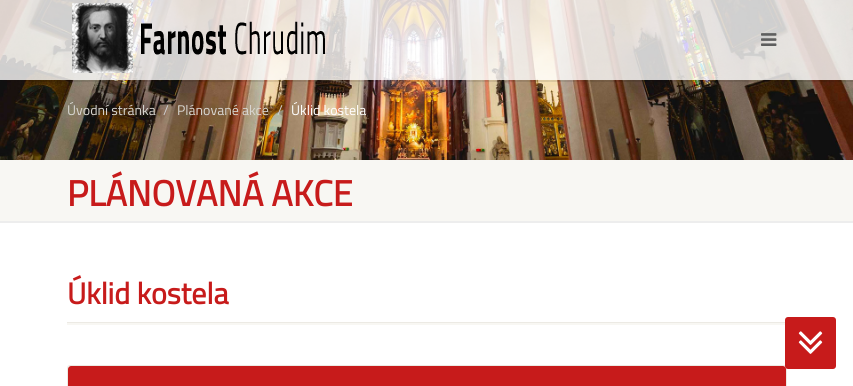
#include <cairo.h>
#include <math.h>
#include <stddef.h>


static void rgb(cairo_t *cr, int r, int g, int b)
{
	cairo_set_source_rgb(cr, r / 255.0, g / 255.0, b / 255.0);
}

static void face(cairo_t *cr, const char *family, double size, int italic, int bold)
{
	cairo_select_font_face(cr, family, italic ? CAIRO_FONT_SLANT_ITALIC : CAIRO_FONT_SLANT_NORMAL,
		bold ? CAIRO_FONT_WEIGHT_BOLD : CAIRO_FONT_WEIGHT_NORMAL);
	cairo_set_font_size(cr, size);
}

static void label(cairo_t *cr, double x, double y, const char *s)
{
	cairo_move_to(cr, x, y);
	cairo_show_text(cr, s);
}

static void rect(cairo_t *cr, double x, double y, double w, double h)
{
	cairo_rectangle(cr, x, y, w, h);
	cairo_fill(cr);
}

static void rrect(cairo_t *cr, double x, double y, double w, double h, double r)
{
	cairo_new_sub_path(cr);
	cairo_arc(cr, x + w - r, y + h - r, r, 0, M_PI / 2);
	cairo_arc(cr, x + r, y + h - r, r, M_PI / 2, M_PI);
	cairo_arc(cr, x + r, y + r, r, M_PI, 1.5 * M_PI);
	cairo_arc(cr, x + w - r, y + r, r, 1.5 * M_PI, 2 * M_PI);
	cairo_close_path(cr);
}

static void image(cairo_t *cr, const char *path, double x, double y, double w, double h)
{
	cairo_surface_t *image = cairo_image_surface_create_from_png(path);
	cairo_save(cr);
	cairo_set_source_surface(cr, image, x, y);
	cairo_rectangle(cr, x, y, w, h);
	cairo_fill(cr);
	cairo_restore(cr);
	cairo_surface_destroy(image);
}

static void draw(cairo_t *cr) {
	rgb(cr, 255, 255, 255);
	cairo_paint(cr);
	image(cr, "image2.png", 0, 0, 853, 160);
	cairo_set_source_rgba(cr, 0, 0, 0, 0.1);
	rect(cr, 17, 80, 836, 2);
	cairo_set_source_rgba(cr, 1, 1, 1, 0.8);
	rect(cr, 0, 0, 853, 80);
	image(cr, "image0.png", 72, 3, 253, 70);
	image(cr, "image1.png", 761, 33, 16, 13);
	face(cr, "Titillium Web", 14, 0, 0);
	rgb(cr, 216, 214, 209);
	label(cr, 67, 115, "Úvodní stránka");
	rgb(cr, 204, 204, 204);
	label(cr, 163, 115, "/");
	rgb(cr, 216, 214, 209);
	label(cr, 177, 115, "Plánované akce");
	rgb(cr, 204, 204, 204);
	label(cr, 277, 115, "/");
	rgb(cr, 255, 255, 255);
	label(cr, 291, 115, "Úklid kostela");
	rgb(cr, 237, 237, 237);
	rect(cr, 0, 221, 853, 2);
	rgb(cr, 248, 247, 243);
	rect(cr, 0, 160, 853, 61);
	face(cr, "Titillium Web", 36, 0, 1);
	rgb(cr, 199, 27, 27);
	label(cr, 67, 206, "PLÁNOVANÁ AKCE");
	rgb(cr, 236, 234, 228);
	rect(cr, 67, 322, 720, 1);
	face(cr, "Titillium Web", 30, 0, 1);
	rgb(cr, 199, 27, 27);
	label(cr, 67, 304, "Úklid kostela");
	rgb(cr, 248, 247, 243);
	rect(cr, 67, 323, 720, 2);
	rrect(cr, 67.5, 365.5, 719, 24, 2.5);
	rgb(cr, 236, 234, 228);
	cairo_set_line_width(cr, 1);
	cairo_stroke(cr);
	rgb(cr, 199, 27, 27);
	cairo_new_path(cr);
	cairo_move_to(cr, 71, 366);
	cairo_line_to(cr, 783, 366);
	cairo_curve_to(cr, 784.5, 366, 786, 367.5, 786, 369);
	cairo_line_to(cr, 786, 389);
	cairo_line_to(cr, 68, 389);
	cairo_line_to(cr, 68, 369);
	cairo_curve_to(cr, 68, 367.5, 69.5, 366, 71, 366);
	cairo_close_path(cr);
	cairo_fill(cr);
	rrect(cr, 785, 317, 51, 52, 3);
	cairo_fill(cr);
	image(cr, "image3.png", 798, 331, 25, 23);
}

int main(void) {
	cairo_surface_t *surface = cairo_image_surface_create(CAIRO_FORMAT_RGB24, 853, 386);
	cairo_t *cr = cairo_create(surface);
	cairo_font_options_t *options = cairo_font_options_create();
	cairo_font_options_set_hint_metrics(options, CAIRO_HINT_METRICS_OFF);
	cairo_font_options_set_hint_style(options, CAIRO_HINT_STYLE_NONE);
	cairo_set_font_options(cr, options);
	cairo_set_miter_limit(cr, 4);
	draw(cr);
	cairo_surface_write_to_png(surface, "render.png");
	cairo_font_options_destroy(options);
	cairo_destroy(cr);
	cairo_surface_destroy(surface);
	return 0;
}
